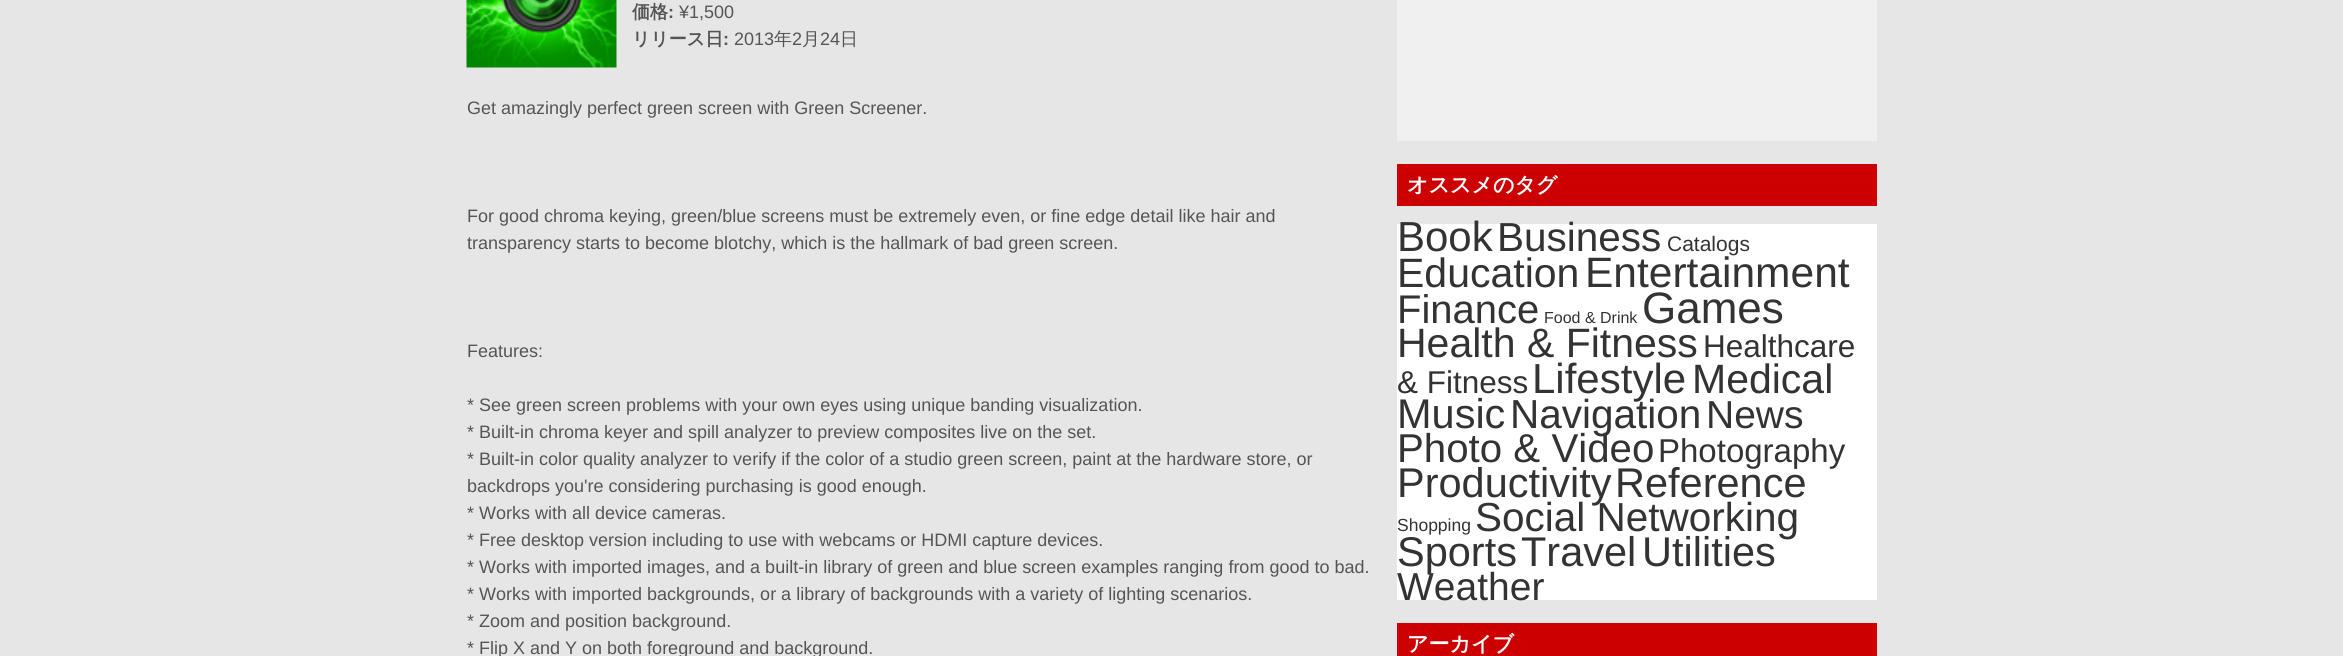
#include <cairo.h>
#include <math.h>
#include <stddef.h>


static void rgb(cairo_t *cr, int r, int g, int b)
{
	cairo_set_source_rgb(cr, r / 255.0, g / 255.0, b / 255.0);
}

static void face(cairo_t *cr, const char *family, double size, int italic, int bold)
{
	cairo_select_font_face(cr, family, italic ? CAIRO_FONT_SLANT_ITALIC : CAIRO_FONT_SLANT_NORMAL,
		bold ? CAIRO_FONT_WEIGHT_BOLD : CAIRO_FONT_WEIGHT_NORMAL);
	cairo_set_font_size(cr, size);
}

static void label(cairo_t *cr, double x, double y, const char *s)
{
	cairo_move_to(cr, x, y);
	cairo_show_text(cr, s);
}

static void rect(cairo_t *cr, double x, double y, double w, double h)
{
	cairo_rectangle(cr, x, y, w, h);
	cairo_fill(cr);
}

static void image(cairo_t *cr, const char *path, double x, double y, double w, double h)
{
	cairo_surface_t *image = cairo_image_surface_create_from_png(path);
	cairo_save(cr);
	cairo_set_source_surface(cr, image, x, y);
	cairo_rectangle(cr, x, y, w, h);
	cairo_fill(cr);
	cairo_restore(cr);
	cairo_surface_destroy(image);
}

static void draw(cairo_t *cr) {
	rgb(cr, 230, 230, 230);
	cairo_paint(cr);
	image(cr, "image0.png", 466, 0, 151, 68);
	face(cr, "WenQuanYi Zen Hei", 18, 0, 1);
	rgb(cr, 85, 85, 85);
	label(cr, 632, 18, "価格");
	face(cr, "Liberation Sans", 18, 0, 1);
	label(cr, 668, 18, ":");
	face(cr, "Liberation Sans", 18, 0, 0);
	label(cr, 679, 18, "¥1,500");
	face(cr, "WenQuanYi Zen Hei", 18, 0, 1);
	label(cr, 632, 45, "リリース日");
	face(cr, "Liberation Sans", 18, 0, 1);
	label(cr, 723, 45, ":");
	face(cr, "Liberation Sans", 18, 0, 0);
	label(cr, 734, 45, "2013");
	face(cr, "WenQuanYi Zen Hei Medium", 18, 0, 0);
	label(cr, 774, 45, "年");
	face(cr, "Liberation Sans", 18, 0, 0);
	label(cr, 792, 45, "2");
	face(cr, "WenQuanYi Zen Hei Medium", 18, 0, 0);
	label(cr, 802, 45, "月");
	face(cr, "Liberation Sans", 18, 0, 0);
	label(cr, 820, 45, "24");
	face(cr, "WenQuanYi Zen Hei Medium", 18, 0, 0);
	label(cr, 840, 45, "日");
	face(cr, "Liberation Sans", 18, 0, 0);
	label(cr, 467, 114, "Get amazingly perfect green screen with Green Screener.");
	label(cr, 467, 222, "For good chroma keying, green/blue screens must be extremely even, or fine edge detail like hair and");
	label(cr, 467, 249, "transparency starts to become blotchy, which is the hallmark of bad green screen.");
	label(cr, 467, 357, "Features:");
	label(cr, 467, 411, "* See green screen problems with your own eyes using unique banding visualization.");
	label(cr, 467, 438, "* Built-in chroma keyer and spill analyzer to preview composites live on the set.");
	label(cr, 467, 465, "* Built-in color quality analyzer to verify if the color of a studio green screen, paint at the hardware store, or");
	label(cr, 467, 492, "backdrops you're considering purchasing is good enough.");
	label(cr, 467, 519, "* Works with all device cameras.");
	label(cr, 467, 546, "* Free desktop version including to use with webcams or HDMI capture devices.");
	label(cr, 467, 573, "* Works with imported images, and a built-in library of green and blue screen examples ranging from good to bad.");
	label(cr, 467, 600, "* Works with imported backgrounds, or a library of backgrounds with a variety of lighting scenarios.");
	label(cr, 467, 627, "* Zoom and position background.");
	label(cr, 467, 654, "* Flip X and Y on both foreground and background.");
	rgb(cr, 240, 240, 240);
	rect(cr, 1397, 0, 480, 141);
	rgb(cr, 204, 0, 0);
	rect(cr, 1397, 164, 480, 42);
	face(cr, "WenQuanYi Zen Hei", 21, 0, 1);
	rgb(cr, 255, 255, 255);
	label(cr, 1407, 192, "オススメのタグ");
	rect(cr, 1397, 224, 480, 376);
	face(cr, "Liberation Sans", 42, 0, 0);
	rgb(cr, 51, 51, 51);
	label(cr, 1397, 251, "Book");
	face(cr, "Liberation Sans", 40.5, 0, 0);
	label(cr, 1497, 251, "Business");
	face(cr, "Liberation Sans", 21, 0, 0);
	label(cr, 1667, 251, "Catalogs");
	face(cr, "Liberation Sans", 41, 0, 0);
	label(cr, 1397, 287, "Education");
	face(cr, "Liberation Sans", 42.5, 0, 0);
	label(cr, 1585, 287, "Entertainment");
	face(cr, "Liberation Sans", 40, 0, 0);
	label(cr, 1397, 323, "Finance");
	face(cr, "Liberation Sans", 16, 0, 0);
	label(cr, 1544, 323, "Food & Drink");
	face(cr, "Liberation Sans", 44, 0, 0);
	label(cr, 1642, 323, "Games");
	face(cr, "Liberation Sans", 41, 0, 0);
	label(cr, 1397, 357, "Health & Fitness");
	face(cr, "Liberation Sans", 31.5, 0, 0);
	label(cr, 1703, 357, "Healthcare");
	label(cr, 1397, 393, "& Fitness");
	face(cr, "Liberation Sans", 42, 0, 0);
	label(cr, 1532, 393, "Lifestyle");
	face(cr, "Liberation Sans", 41, 0, 0);
	label(cr, 1692, 393, "Medical");
	face(cr, "Liberation Sans", 41.5, 0, 0);
	label(cr, 1397, 428, "Music");
	face(cr, "Liberation Sans", 40.5, 0, 0);
	label(cr, 1510, 428, "Navigation");
	face(cr, "Liberation Sans", 39, 0, 0);
	label(cr, 1706, 428, "News");
	face(cr, "Liberation Sans", 40.25, 0, 0);
	label(cr, 1397, 462, "Photo & Video");
	face(cr, "Liberation Sans", 33, 0, 0);
	label(cr, 1658, 462, "Photography");
	face(cr, "Liberation Sans", 41.5, 0, 0);
	label(cr, 1397, 497, "Productivity");
	label(cr, 1615, 497, "Reference");
	face(cr, "Liberation Sans", 17.5, 0, 0);
	label(cr, 1397, 531, "Shopping");
	face(cr, "Liberation Sans", 40.5, 0, 0);
	label(cr, 1475, 531, "Social Networking");
	face(cr, "Liberation Sans", 41.5, 0, 0);
	label(cr, 1397, 566, "Sports");
	label(cr, 1521, 566, "Travel");
	label(cr, 1642, 566, "Utilities");
	face(cr, "Liberation Sans", 39, 0, 0);
	label(cr, 1397, 600, "Weather");
	rgb(cr, 204, 0, 0);
	rect(cr, 1397, 623, 480, 33);
	face(cr, "WenQuanYi Zen Hei", 21, 0, 1);
	rgb(cr, 255, 255, 255);
	label(cr, 1407, 651, "アーカイブ");
}

int main(void) {
	cairo_surface_t *surface = cairo_image_surface_create(CAIRO_FORMAT_RGB24, 2343, 656);
	cairo_t *cr = cairo_create(surface);
	cairo_font_options_t *options = cairo_font_options_create();
	cairo_font_options_set_hint_metrics(options, CAIRO_HINT_METRICS_OFF);
	cairo_font_options_set_hint_style(options, CAIRO_HINT_STYLE_NONE);
	cairo_set_font_options(cr, options);
	cairo_set_miter_limit(cr, 4);
	draw(cr);
	cairo_surface_write_to_png(surface, "render.png");
	cairo_font_options_destroy(options);
	cairo_destroy(cr);
	cairo_surface_destroy(surface);
	return 0;
}
